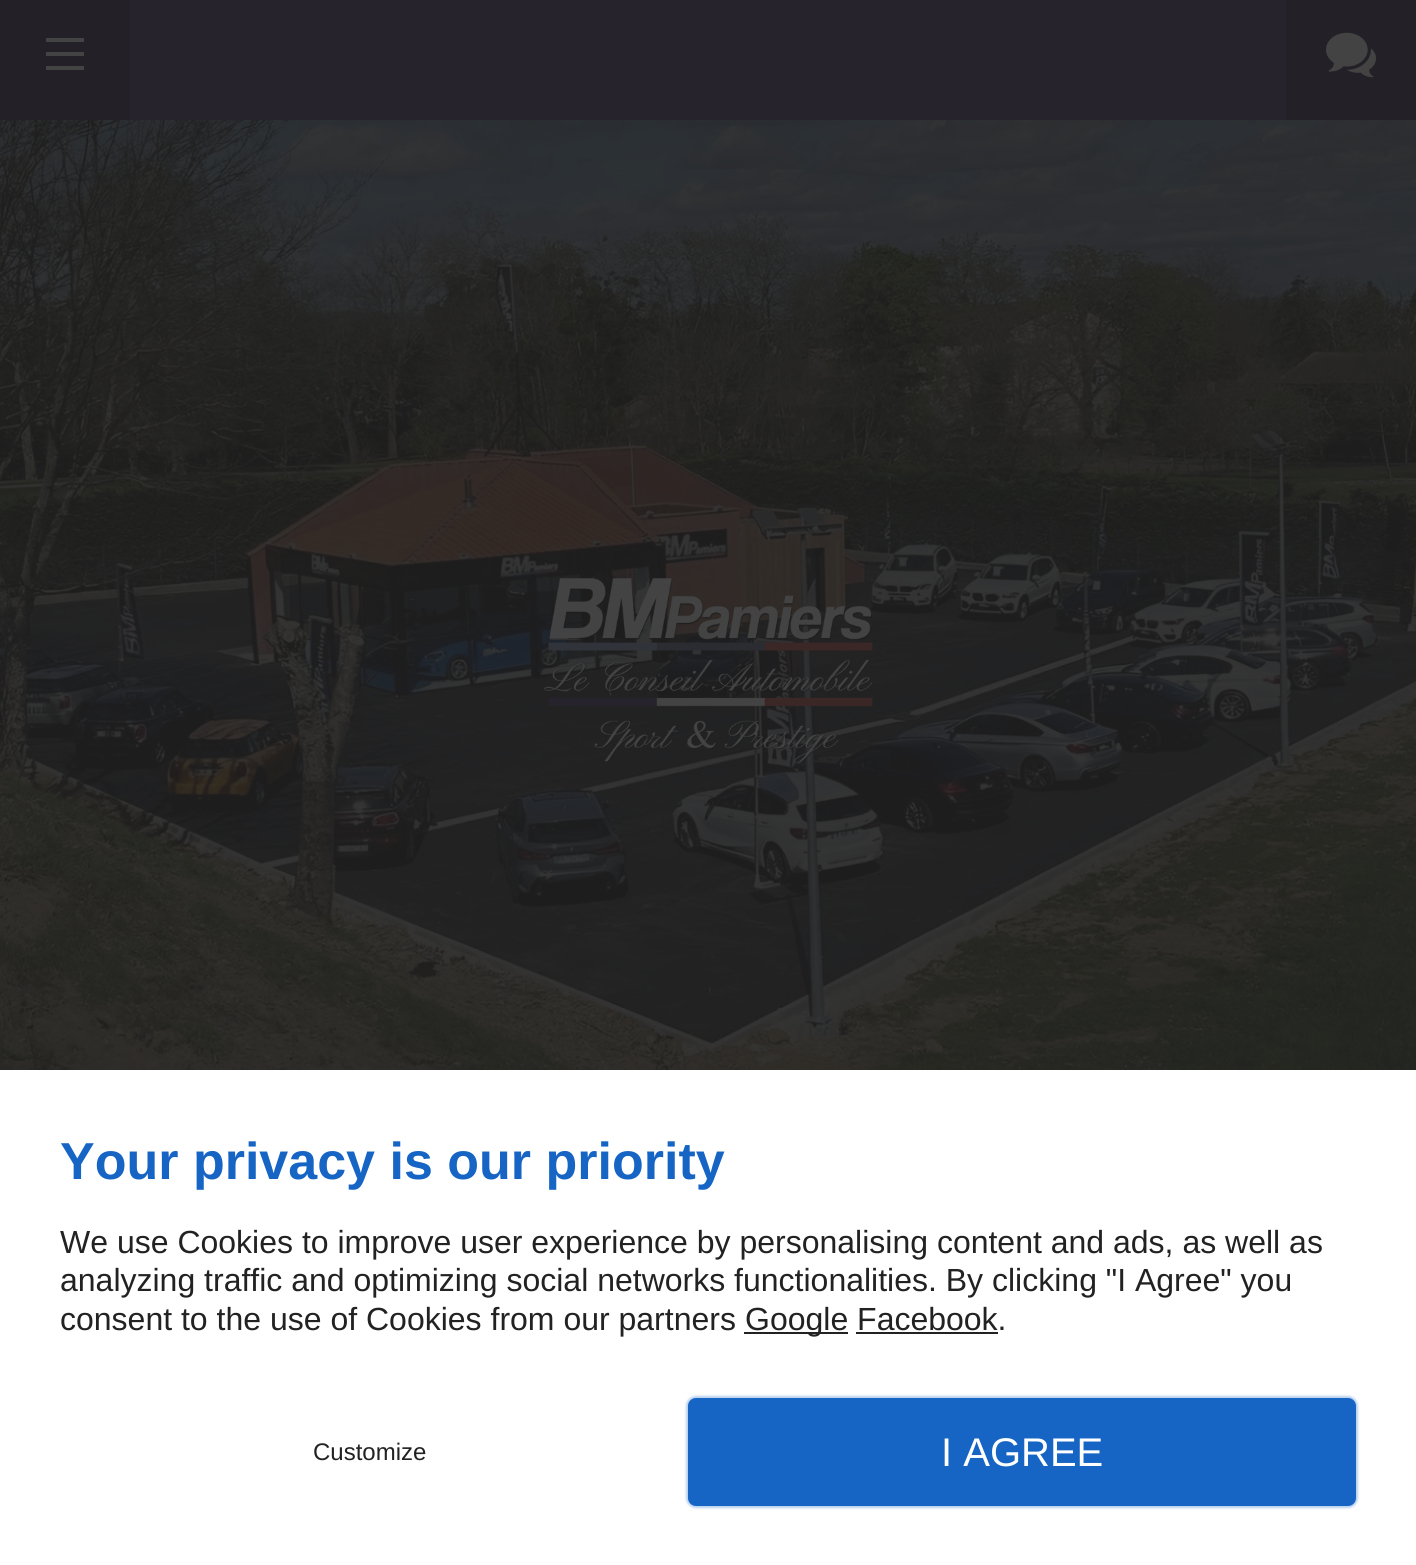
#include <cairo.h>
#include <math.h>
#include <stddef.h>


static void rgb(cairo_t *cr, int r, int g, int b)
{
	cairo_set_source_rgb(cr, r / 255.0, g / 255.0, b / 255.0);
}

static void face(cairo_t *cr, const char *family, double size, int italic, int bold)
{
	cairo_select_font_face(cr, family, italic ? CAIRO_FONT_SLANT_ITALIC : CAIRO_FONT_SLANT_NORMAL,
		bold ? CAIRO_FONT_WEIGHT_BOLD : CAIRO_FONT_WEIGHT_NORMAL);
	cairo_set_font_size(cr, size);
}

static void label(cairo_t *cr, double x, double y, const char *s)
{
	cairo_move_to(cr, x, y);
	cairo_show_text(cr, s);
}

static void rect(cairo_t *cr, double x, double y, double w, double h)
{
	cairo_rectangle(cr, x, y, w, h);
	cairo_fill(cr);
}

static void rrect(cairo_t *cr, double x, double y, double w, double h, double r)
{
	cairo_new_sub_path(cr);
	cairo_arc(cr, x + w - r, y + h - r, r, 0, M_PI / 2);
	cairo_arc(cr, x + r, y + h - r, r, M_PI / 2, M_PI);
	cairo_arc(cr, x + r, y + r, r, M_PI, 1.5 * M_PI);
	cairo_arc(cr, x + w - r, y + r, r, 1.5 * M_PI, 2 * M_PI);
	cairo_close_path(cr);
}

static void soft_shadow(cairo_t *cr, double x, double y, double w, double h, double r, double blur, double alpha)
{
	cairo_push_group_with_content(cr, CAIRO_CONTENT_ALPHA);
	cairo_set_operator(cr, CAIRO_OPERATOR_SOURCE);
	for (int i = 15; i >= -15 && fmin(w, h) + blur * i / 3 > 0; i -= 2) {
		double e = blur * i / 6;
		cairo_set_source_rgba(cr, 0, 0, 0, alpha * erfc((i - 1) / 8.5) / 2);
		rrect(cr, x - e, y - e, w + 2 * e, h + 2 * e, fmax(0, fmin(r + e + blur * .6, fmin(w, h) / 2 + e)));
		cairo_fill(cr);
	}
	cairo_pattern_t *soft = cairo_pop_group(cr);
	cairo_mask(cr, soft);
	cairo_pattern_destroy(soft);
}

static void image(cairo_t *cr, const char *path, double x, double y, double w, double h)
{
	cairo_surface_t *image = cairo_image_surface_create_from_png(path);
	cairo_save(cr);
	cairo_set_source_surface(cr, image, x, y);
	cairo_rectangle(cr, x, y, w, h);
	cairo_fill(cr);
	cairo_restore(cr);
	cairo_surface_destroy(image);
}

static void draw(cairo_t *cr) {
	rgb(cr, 255, 255, 255);
	cairo_paint(cr);
	rgb(cr, 38, 35, 44);
	rect(cr, 130, 0, 1156, 120);
	rgb(cr, 35, 33, 39);
	rect(cr, 0, 0, 130, 120);
	rgb(cr, 67, 67, 67);
	rect(cr, 46, 66, 38, 4);
	rect(cr, 46, 52, 38, 4);
	rect(cr, 46, 38, 38, 4);
	rgb(cr, 35, 33, 39);
	rect(cr, 1286, 0, 130, 120);
	image(cr, "image0.png", 1326, 32, 50, 46);
	image(cr, "image1.png", 0, 120, 1416, 950);
	image(cr, "image2.png", 543, 578, 330, 187);
	face(cr, "Liberation Sans", 52, 0, 1);
	rgb(cr, 22, 101, 196);
	label(cr, 60, 1179, "Your privacy is our priority");
	face(cr, "Liberation Sans", 32, 0, 0);
	rgb(cr, 34, 34, 34);
	label(cr, 60, 1253, "We use Cookies to improve user experience by personalising content and ads, as well as");
	label(cr, 60, 1291, "analyzing traffic and optimizing social networks functionalities. By clicking \"I Agree\" you");
	label(cr, 60, 1330, "consent to the use of Cookies from our partners");
	rect(cr, 744, 1332, 104, 2);
	label(cr, 745, 1330, "Google Facebook.");
	rect(cr, 856, 1332, 142, 2);
	face(cr, "Liberation Sans", 24, 0, 0);
	label(cr, 313, 1460, "Customize");
	rgb(cr, 22, 101, 196);
	soft_shadow(cr, 686, 1396, 672, 112, 10, 1, 0.3);
	rgb(cr, 22, 101, 196);
	rrect(cr, 690, 1400, 664, 104, 6);
	cairo_fill_preserve(cr);
	cairo_set_line_width(cr, 4);
	cairo_stroke(cr);
	face(cr, "Liberation Sans", 40, 0, 0);
	rgb(cr, 255, 255, 255);
	label(cr, 941, 1466, "I AGREE");
}

int main(void) {
	cairo_surface_t *surface = cairo_image_surface_create(CAIRO_FORMAT_RGB24, 1416, 1565);
	cairo_t *cr = cairo_create(surface);
	cairo_font_options_t *options = cairo_font_options_create();
	cairo_font_options_set_hint_metrics(options, CAIRO_HINT_METRICS_OFF);
	cairo_font_options_set_hint_style(options, CAIRO_HINT_STYLE_NONE);
	cairo_set_font_options(cr, options);
	cairo_set_miter_limit(cr, 4);
	draw(cr);
	cairo_surface_write_to_png(surface, "render.png");
	cairo_font_options_destroy(options);
	cairo_destroy(cr);
	cairo_surface_destroy(surface);
	return 0;
}
